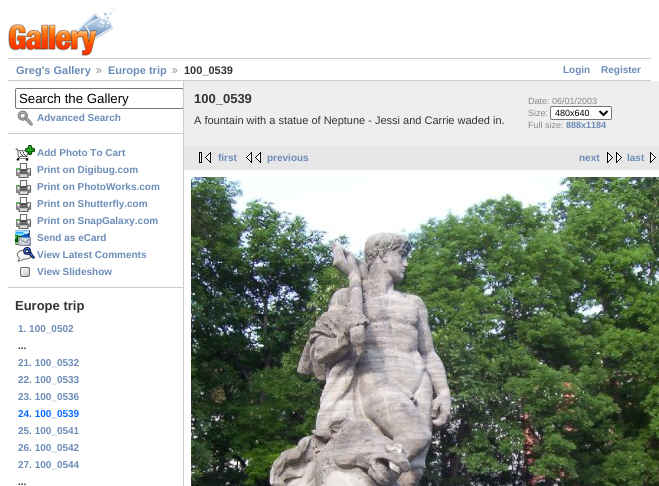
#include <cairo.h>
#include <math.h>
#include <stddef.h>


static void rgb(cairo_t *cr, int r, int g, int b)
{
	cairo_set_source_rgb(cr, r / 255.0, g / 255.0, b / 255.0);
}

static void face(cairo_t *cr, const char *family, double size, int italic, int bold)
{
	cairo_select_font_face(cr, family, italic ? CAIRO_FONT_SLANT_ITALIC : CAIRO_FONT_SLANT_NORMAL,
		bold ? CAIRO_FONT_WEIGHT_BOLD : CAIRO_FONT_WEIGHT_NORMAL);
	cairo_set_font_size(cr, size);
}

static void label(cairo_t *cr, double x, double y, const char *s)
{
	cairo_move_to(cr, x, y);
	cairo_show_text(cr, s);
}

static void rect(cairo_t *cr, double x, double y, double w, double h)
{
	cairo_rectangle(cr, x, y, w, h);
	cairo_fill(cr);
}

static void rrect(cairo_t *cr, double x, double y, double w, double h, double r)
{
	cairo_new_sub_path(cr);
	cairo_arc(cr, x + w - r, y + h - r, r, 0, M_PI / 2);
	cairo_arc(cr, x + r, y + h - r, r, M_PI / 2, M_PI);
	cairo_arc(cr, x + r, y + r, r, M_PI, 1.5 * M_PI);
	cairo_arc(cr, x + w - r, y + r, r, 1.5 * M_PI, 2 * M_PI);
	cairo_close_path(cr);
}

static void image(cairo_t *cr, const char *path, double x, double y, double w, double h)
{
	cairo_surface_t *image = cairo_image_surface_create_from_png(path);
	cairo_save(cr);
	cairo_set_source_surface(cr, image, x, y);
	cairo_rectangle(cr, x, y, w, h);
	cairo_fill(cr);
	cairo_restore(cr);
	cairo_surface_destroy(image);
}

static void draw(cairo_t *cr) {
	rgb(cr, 255, 255, 255);
	cairo_paint(cr);
	image(cr, "image0.png", 8, 8, 107, 48);
	rgb(cr, 204, 204, 204);
	rect(cr, 8, 58, 643, 1);
	rect(cr, 8, 80, 643, 1);
	face(cr, "Liberation Sans", 11, 0, 1);
	rgb(cr, 107, 140, 183);
	label(cr, 16, 74, "Greg's Gallery");
	image(cr, "image1.png", 96, 68, 6, 5);
	label(cr, 108, 74, "Europe trip");
	image(cr, "image1.png", 172, 68, 6, 5);
	rgb(cr, 51, 51, 51);
	label(cr, 184, 74, "100_0539");
	face(cr, "Liberation Sans", 10, 0, 1);
	rgb(cr, 107, 140, 183);
	label(cr, 563, 73, "Login");
	label(cr, 601, 73, "Register");
	rgb(cr, 204, 204, 204);
	rect(cr, 183, 81, 1, 405);
	rect(cr, 8, 133, 175, 1);
	cairo_save(cr);
	cairo_rectangle(cr, 8, 81, 175, 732);
	cairo_clip(cr);
	rrect(cr, 15.5, 88.5, 168, 20, 1.5);
	rgb(cr, 118, 118, 118);
	cairo_set_line_width(cr, 1);
	cairo_stroke(cr);
	cairo_restore(cr);
	face(cr, "Liberation Sans", 13.25, 0, 0);
	rgb(cr, 0, 0, 0);
	label(cr, 19, 103, "Search the Gallery");
	image(cr, "image2.png", 17, 110, 16, 16);
	face(cr, "Liberation Sans", 10, 0, 1);
	rgb(cr, 107, 140, 183);
	label(cr, 37, 121, "Advanced Search");
	rgb(cr, 204, 204, 204);
	rect(cr, 8, 287, 175, 1);
	image(cr, "image3.png", 15, 145, 20, 16);
	rgb(cr, 107, 140, 183);
	label(cr, 37, 156, "Add Photo To Cart");
	image(cr, "image4.png", 16, 163, 16, 15);
	label(cr, 37, 173, "Print on Digibug.com");
	image(cr, "image4.png", 16, 180, 16, 15);
	label(cr, 37, 190, "Print on PhotoWorks.com");
	image(cr, "image4.png", 16, 197, 16, 15);
	label(cr, 37, 207, "Print on Shutterfly.com");
	image(cr, "image4.png", 16, 214, 16, 15);
	label(cr, 37, 224, "Print on SnapGalaxy.com");
	image(cr, "image5.png", 15, 230, 16, 16);
	label(cr, 37, 241, "Send as eCard");
	image(cr, "image6.png", 16, 247, 19, 15);
	label(cr, 37, 258, "View Latest Comments");
	image(cr, "image7.png", 20, 267, 10, 10);
	label(cr, 37, 275, "View Slideshow");
	face(cr, "Liberation Sans", 13, 0, 1);
	rgb(cr, 51, 51, 51);
	label(cr, 15, 310, "Europe trip");
	face(cr, "Liberation Sans", 10, 0, 1);
	rgb(cr, 107, 140, 183);
	label(cr, 18, 332, "1. 100_0502");
	rgb(cr, 51, 51, 51);
	label(cr, 18, 349, "...");
	rgb(cr, 107, 140, 183);
	label(cr, 18, 366, "21. 100_0532");
	label(cr, 18, 383, "22. 100_0533");
	label(cr, 18, 400, "23. 100_0536");
	rgb(cr, 11, 108, 255);
	label(cr, 18, 417, "24. 100_0539");
	rgb(cr, 107, 140, 183);
	label(cr, 18, 434, "25. 100_0541");
	label(cr, 18, 451, "26. 100_0542");
	label(cr, 18, 468, "27. 100_0544");
	rgb(cr, 51, 51, 51);
	label(cr, 18, 485, "...");
	rgb(cr, 238, 238, 238);
	rect(cr, 184, 81, 475, 64);
	face(cr, "Liberation Sans", 13, 0, 1);
	rgb(cr, 51, 51, 51);
	label(cr, 194, 103, "100_0539");
	face(cr, "Liberation Sans", 11, 0, 0);
	label(cr, 194, 124, "A fountain with a statue of Neptune - Jessi and Carrie waded in.");
	face(cr, "Liberation Sans", 9, 0, 0);
	rgb(cr, 136, 136, 136);
	label(cr, 528, 104, "Date: 06/01/2003");
	label(cr, 528, 116, "Size:");
	rgb(cr, 255, 255, 255);
	rrect(cr, 550.5, 106.5, 61, 13, 1.5);
	cairo_fill_preserve(cr);
	rgb(cr, 118, 118, 118);
	cairo_set_line_width(cr, 1);
	cairo_stroke(cr);
	cairo_new_path(cr);
	cairo_move_to(cr, 599.5, 111);
	cairo_line_to(cr, 603.5, 115);
	cairo_line_to(cr, 607.5, 111);
	rgb(cr, 0, 0, 0);
	cairo_set_line_width(cr, 2);
	cairo_stroke(cr);
	label(cr, 555, 116, "480x640");
	rgb(cr, 136, 136, 136);
	label(cr, 528, 128, "Full size:");
	face(cr, "Liberation Sans", 9, 0, 1);
	rgb(cr, 107, 140, 183);
	label(cr, 566, 128, "888x1184");
	rgb(cr, 231, 231, 231);
	rect(cr, 184, 145, 475, 25);
	image(cr, "image8.png", 199, 152, 12, 11);
	face(cr, "Liberation Sans", 10, 0, 1);
	rgb(cr, 107, 140, 183);
	label(cr, 218, 161, "first");
	image(cr, "image9.png", 246, 152, 15, 11);
	label(cr, 267, 161, "previous");
	label(cr, 579, 161, "next");
	image(cr, "image10.png", 607, 152, 15, 11);
	label(cr, 627, 161, "last");
	image(cr, "image11.png", 650, 152, 6, 11);
	image(cr, "image12.png", 191, 177, 468, 309);
}

int main(void) {
	cairo_surface_t *surface = cairo_image_surface_create(CAIRO_FORMAT_RGB24, 659, 486);
	cairo_t *cr = cairo_create(surface);
	cairo_font_options_t *options = cairo_font_options_create();
	cairo_font_options_set_hint_metrics(options, CAIRO_HINT_METRICS_OFF);
	cairo_font_options_set_hint_style(options, CAIRO_HINT_STYLE_NONE);
	cairo_set_font_options(cr, options);
	cairo_set_miter_limit(cr, 4);
	draw(cr);
	cairo_surface_write_to_png(surface, "render.png");
	cairo_font_options_destroy(options);
	cairo_destroy(cr);
	cairo_surface_destroy(surface);
	return 0;
}
